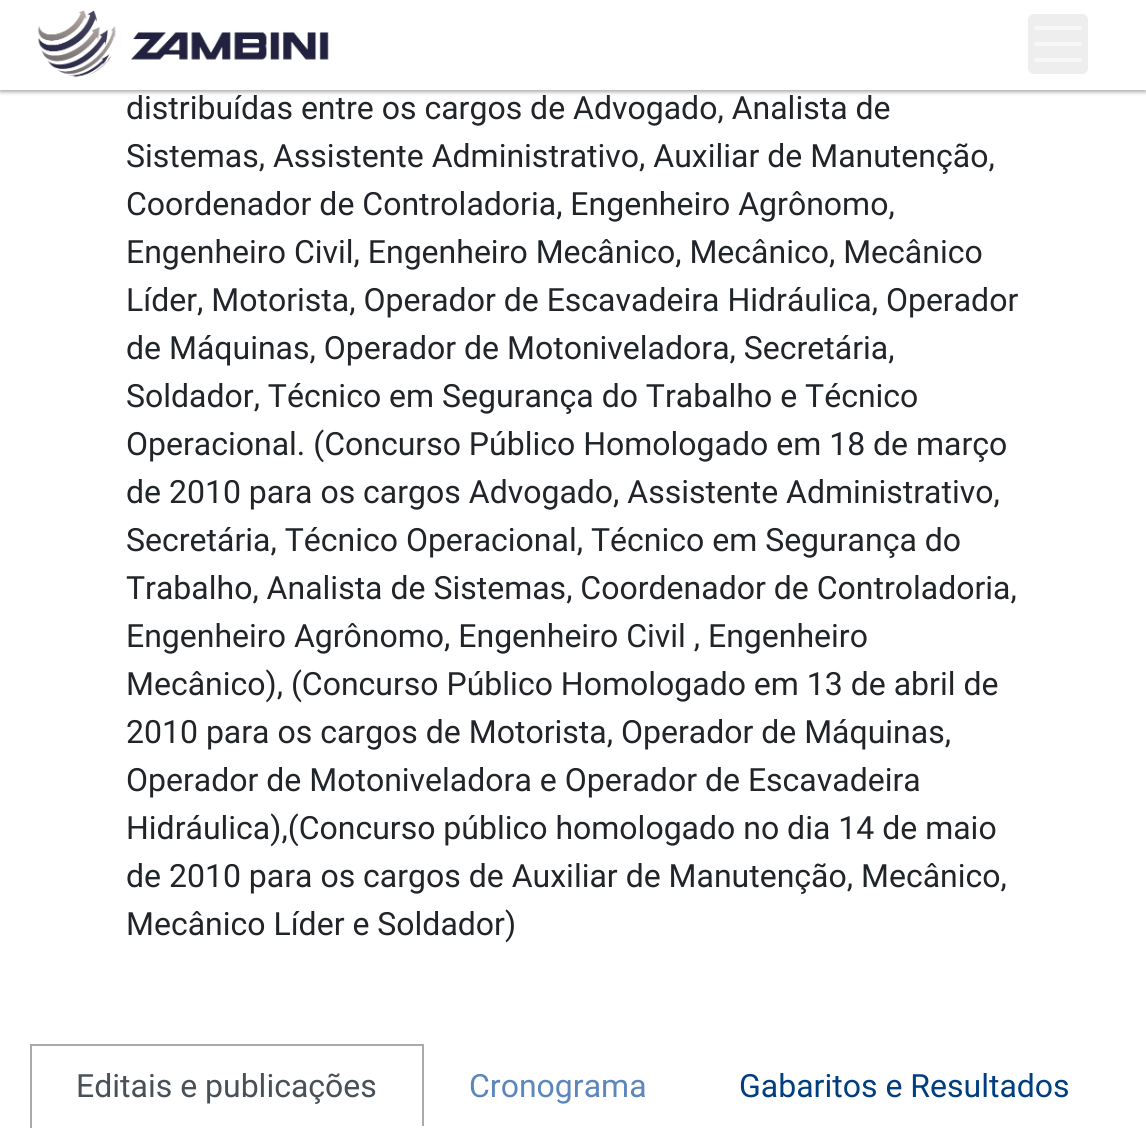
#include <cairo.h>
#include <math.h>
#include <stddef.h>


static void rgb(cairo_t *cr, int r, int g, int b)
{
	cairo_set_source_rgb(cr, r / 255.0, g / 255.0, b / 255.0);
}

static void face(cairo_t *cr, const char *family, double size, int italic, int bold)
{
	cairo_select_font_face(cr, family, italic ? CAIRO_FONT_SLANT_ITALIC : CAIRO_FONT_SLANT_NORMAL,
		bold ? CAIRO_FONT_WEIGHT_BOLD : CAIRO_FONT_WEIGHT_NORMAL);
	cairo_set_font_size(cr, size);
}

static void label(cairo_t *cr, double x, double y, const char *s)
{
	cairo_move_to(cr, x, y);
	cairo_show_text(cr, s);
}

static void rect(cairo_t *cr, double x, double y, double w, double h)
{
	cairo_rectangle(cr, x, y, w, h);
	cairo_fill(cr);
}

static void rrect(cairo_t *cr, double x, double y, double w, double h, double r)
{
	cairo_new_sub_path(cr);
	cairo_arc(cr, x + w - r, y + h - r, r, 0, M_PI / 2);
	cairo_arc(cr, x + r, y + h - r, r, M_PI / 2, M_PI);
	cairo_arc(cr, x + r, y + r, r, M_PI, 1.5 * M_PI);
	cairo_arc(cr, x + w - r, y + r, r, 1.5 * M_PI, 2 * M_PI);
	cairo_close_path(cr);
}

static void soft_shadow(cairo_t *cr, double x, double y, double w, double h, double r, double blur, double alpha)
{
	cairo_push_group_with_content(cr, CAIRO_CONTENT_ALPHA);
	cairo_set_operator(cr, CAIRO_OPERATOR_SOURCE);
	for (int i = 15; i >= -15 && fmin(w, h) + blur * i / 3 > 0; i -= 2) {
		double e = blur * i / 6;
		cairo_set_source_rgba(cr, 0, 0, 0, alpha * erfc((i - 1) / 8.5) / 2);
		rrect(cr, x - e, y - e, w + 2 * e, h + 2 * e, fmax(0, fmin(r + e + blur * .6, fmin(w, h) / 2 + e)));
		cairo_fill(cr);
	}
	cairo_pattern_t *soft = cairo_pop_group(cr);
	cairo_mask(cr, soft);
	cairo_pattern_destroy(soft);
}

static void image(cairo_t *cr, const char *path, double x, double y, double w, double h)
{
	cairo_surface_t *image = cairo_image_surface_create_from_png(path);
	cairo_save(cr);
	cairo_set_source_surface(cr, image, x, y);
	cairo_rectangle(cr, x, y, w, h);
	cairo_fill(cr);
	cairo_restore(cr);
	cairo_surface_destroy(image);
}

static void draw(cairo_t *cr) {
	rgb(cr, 255, 255, 255);
	cairo_paint(cr);
	rgb(cr, 170, 170, 170);
	soft_shadow(cr, 0, 2, 1146, 90, 0, 2, 1);
	rgb(cr, 255, 255, 255);
	rect(cr, 0, 0, 1146, 90);
	image(cr, "image0.png", 37, 10, 292, 67);
	rgb(cr, 238, 238, 238);
	rrect(cr, 1028, 14, 60, 60, 6);
	cairo_fill(cr);
	cairo_new_path(cr);
	cairo_move_to(cr, 1036, 28);
	cairo_line_to(cr, 1080, 28);
	cairo_move_to(cr, 1036, 44);
	cairo_line_to(cr, 1080, 44);
	cairo_move_to(cr, 1036, 60);
	cairo_line_to(cr, 1080, 60);
	rgb(cr, 247, 247, 247);
	cairo_set_line_width(cr, 4);
	cairo_set_line_cap(cr, CAIRO_LINE_CAP_ROUND);
	cairo_stroke(cr);
	face(cr, "Roboto", 32, 0, 0);
	rgb(cr, 33, 37, 41);
	label(cr, 126, 119, "distribuídas entre os cargos de Advogado, Analista de");
	label(cr, 126, 167, "Sistemas, Assistente Administrativo, Auxiliar de Manutenção,");
	label(cr, 126, 215, "Coordenador de Controladoria, Engenheiro Agrônomo,");
	label(cr, 126, 263, "Engenheiro Civil, Engenheiro Mecânico, Mecânico, Mecânico");
	label(cr, 126, 311, "Líder, Motorista, Operador de Escavadeira Hidráulica, Operador");
	label(cr, 126, 359, "de Máquinas, Operador de Motoniveladora, Secretária,");
	label(cr, 126, 407, "Soldador, Técnico em Segurança do Trabalho e Técnico");
	label(cr, 126, 455, "Operacional. (Concurso Público Homologado em 18 de março");
	label(cr, 126, 503, "de 2010 para os cargos Advogado, Assistente Administrativo,");
	label(cr, 126, 551, "Secretária, Técnico Operacional, Técnico em Segurança do");
	label(cr, 126, 599, "Trabalho, Analista de Sistemas, Coordenador de Controladoria,");
	label(cr, 126, 647, "Engenheiro Agrônomo, Engenheiro Civil , Engenheiro");
	label(cr, 126, 695, "Mecânico), (Concurso Público Homologado em 13 de abril de");
	label(cr, 126, 743, "2010 para os cargos de Motorista, Operador de Máquinas,");
	label(cr, 126, 791, "Operador de Motoniveladora e Operador de Escavadeira");
	label(cr, 126, 839, "Hidráulica),(Concurso público homologado no dia 14 de maio");
	label(cr, 126, 887, "de 2010 para os cargos de Auxiliar de Manutenção, Mecânico,");
	label(cr, 126, 935, "Mecânico Líder e Soldador)");
	rgb(cr, 170, 170, 170);
	rect(cr, 30, 1044, 394, 2);
	rect(cr, 422, 1044, 2, 84);
	rgb(cr, 255, 255, 255);
	rect(cr, 422, 1126, 2, 2);
	rgb(cr, 170, 170, 170);
	rect(cr, 30, 1044, 2, 84);
	rgb(cr, 73, 80, 87);
	label(cr, 76, 1097, "Editais e publicações");
	rgb(cr, 92, 134, 188);
	label(cr, 469, 1097, "Cronograma");
	rgb(cr, 0, 62, 127);
	label(cr, 739, 1097, "Gabaritos e Resultados");
}

int main(void) {
	cairo_surface_t *surface = cairo_image_surface_create(CAIRO_FORMAT_RGB24, 1146, 1142);
	cairo_t *cr = cairo_create(surface);
	cairo_font_options_t *options = cairo_font_options_create();
	cairo_font_options_set_hint_metrics(options, CAIRO_HINT_METRICS_OFF);
	cairo_font_options_set_hint_style(options, CAIRO_HINT_STYLE_NONE);
	cairo_set_font_options(cr, options);
	cairo_set_miter_limit(cr, 4);
	draw(cr);
	cairo_surface_write_to_png(surface, "render.png");
	cairo_font_options_destroy(options);
	cairo_destroy(cr);
	cairo_surface_destroy(surface);
	return 0;
}
